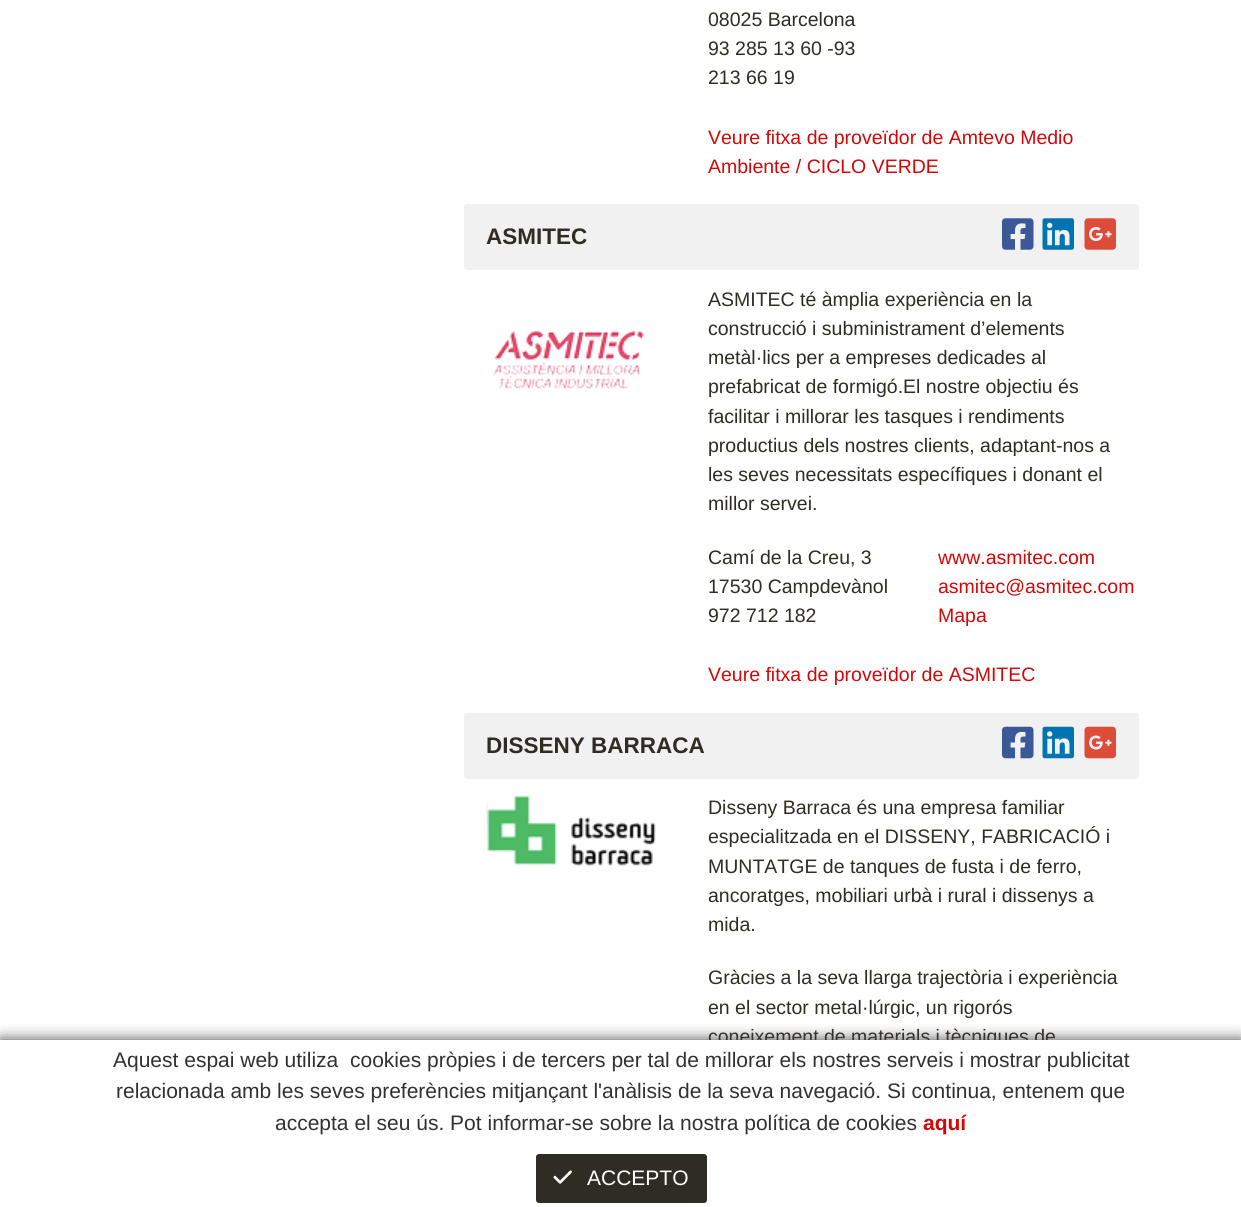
#include <cairo.h>
#include <math.h>
#include <stddef.h>


static void rgb(cairo_t *cr, int r, int g, int b)
{
	cairo_set_source_rgb(cr, r / 255.0, g / 255.0, b / 255.0);
}

static void face(cairo_t *cr, const char *family, double size, int italic, int bold)
{
	cairo_select_font_face(cr, family, italic ? CAIRO_FONT_SLANT_ITALIC : CAIRO_FONT_SLANT_NORMAL,
		bold ? CAIRO_FONT_WEIGHT_BOLD : CAIRO_FONT_WEIGHT_NORMAL);
	cairo_set_font_size(cr, size);
}

static void label(cairo_t *cr, double x, double y, const char *s)
{
	cairo_move_to(cr, x, y);
	cairo_show_text(cr, s);
}

static void rect(cairo_t *cr, double x, double y, double w, double h)
{
	cairo_rectangle(cr, x, y, w, h);
	cairo_fill(cr);
}

static void rrect(cairo_t *cr, double x, double y, double w, double h, double r)
{
	cairo_new_sub_path(cr);
	cairo_arc(cr, x + w - r, y + h - r, r, 0, M_PI / 2);
	cairo_arc(cr, x + r, y + h - r, r, M_PI / 2, M_PI);
	cairo_arc(cr, x + r, y + r, r, M_PI, 1.5 * M_PI);
	cairo_arc(cr, x + w - r, y + r, r, 1.5 * M_PI, 2 * M_PI);
	cairo_close_path(cr);
}

static void soft_shadow(cairo_t *cr, double x, double y, double w, double h, double r, double blur, double alpha)
{
	cairo_push_group_with_content(cr, CAIRO_CONTENT_ALPHA);
	cairo_set_operator(cr, CAIRO_OPERATOR_SOURCE);
	for (int i = 15; i >= -15 && fmin(w, h) + blur * i / 3 > 0; i -= 2) {
		double e = blur * i / 6;
		cairo_set_source_rgba(cr, 0, 0, 0, alpha * erfc((i - 1) / 8.5) / 2);
		rrect(cr, x - e, y - e, w + 2 * e, h + 2 * e, fmax(0, fmin(r + e + blur * .6, fmin(w, h) / 2 + e)));
		cairo_fill(cr);
	}
	cairo_pattern_t *soft = cairo_pop_group(cr);
	cairo_mask(cr, soft);
	cairo_pattern_destroy(soft);
}

static void image(cairo_t *cr, const char *path, double x, double y, double w, double h)
{
	cairo_surface_t *image = cairo_image_surface_create_from_png(path);
	cairo_save(cr);
	cairo_set_source_surface(cr, image, x, y);
	cairo_rectangle(cr, x, y, w, h);
	cairo_fill(cr);
	cairo_restore(cr);
	cairo_surface_destroy(image);
}

static void draw(cairo_t *cr) {
	rgb(cr, 255, 255, 255);
	cairo_paint(cr);
	face(cr, "Liberation Sans", 19.5, 0, 0);
	rgb(cr, 47, 44, 36);
	label(cr, 708, 26, "08025 Barcelona");
	label(cr, 708, 55, "93 285 13 60 -93");
	label(cr, 708, 84, "213 66 19");
	rgb(cr, 210, 8, 8);
	label(cr, 708, 144, "Veure fitxa de proveïdor de Amtevo Medio");
	label(cr, 708, 173, "Ambiente / CICLO VERDE");
	rgb(cr, 241, 241, 241);
	rrect(cr, 464, 204, 675, 66, 3);
	cairo_fill(cr);
	face(cr, "Liberation Sans", 22.5, 0, 1);
	rgb(cr, 47, 44, 36);
	label(cr, 486, 244, "ASMITEC");
	image(cr, "image0.png", 1002, 218, 32, 32);
	image(cr, "image1.png", 1042, 218, 32, 32);
	image(cr, "image2.png", 1084, 218, 32, 32);
	image(cr, "image3.png", 493, 330, 151, 59);
	face(cr, "Liberation Sans", 19.5, 0, 0);
	label(cr, 708, 306, "ASMITEC té àmplia experiència en la");
	label(cr, 708, 335, "construcció i subministrament d’elements");
	label(cr, 708, 364, "metàl·lics per a empreses dedicades al");
	label(cr, 708, 393, "prefabricat de formigó.El nostre objectiu és");
	label(cr, 708, 423, "facilitar i millorar les tasques i rendiments");
	label(cr, 708, 452, "productius dels nostres clients, adaptant-nos a");
	label(cr, 708, 481, "les seves necessitats específiques i donant el");
	label(cr, 708, 510, "millor servei.");
	label(cr, 708, 564, "Camí de la Creu, 3");
	label(cr, 708, 593, "17530 Campdevànol");
	label(cr, 708, 622, "972 712 182");
	rgb(cr, 210, 8, 8);
	label(cr, 938, 564, "www.asmitec.com");
	label(cr, 938, 593, "asmitec@asmitec.com");
	label(cr, 938, 622, "Mapa");
	label(cr, 708, 681, "Veure fitxa de proveïdor de ASMITEC");
	rgb(cr, 241, 241, 241);
	rrect(cr, 464, 713, 675, 66, 3);
	cairo_fill(cr);
	face(cr, "Liberation Sans", 22.5, 0, 1);
	rgb(cr, 47, 44, 36);
	label(cr, 486, 753, "DISSENY BARRACA");
	image(cr, "image4.png", 1002, 726, 32, 33);
	image(cr, "image5.png", 1042, 726, 32, 33);
	image(cr, "image6.png", 1084, 726, 32, 33);
	image(cr, "image7.png", 486, 795, 170, 71);
	face(cr, "Liberation Sans", 19.5, 0, 0);
	label(cr, 708, 814, "Disseny Barraca és una empresa familiar");
	label(cr, 708, 843, "especialitzada en el DISSENY, FABRICACIÓ i");
	label(cr, 708, 873, "MUNTATGE de tanques de fusta i de ferro,");
	label(cr, 708, 902, "ancoratges, mobiliari urbà i rural i dissenys a");
	label(cr, 708, 931, "mida.");
	label(cr, 708, 984, "Gràcies a la seva llarga trajectòria i experiència");
	label(cr, 708, 1014, "en el sector metal·lúrgic, un rigorós");
	label(cr, 708, 1043, "coneixement de materials i tècniques de");
	rgb(cr, 68, 68, 68);
	soft_shadow(cr, 0, 1040, 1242, 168, 0, 7.5, 1);
	rgb(cr, 255, 255, 255);
	rect(cr, 0, 1040, 1241, 167);
	face(cr, "Liberation Sans", 21, 0, 0);
	rgb(cr, 49, 49, 49);
	label(cr, 113, 1067, "Aquest espai web utiliza  cookies pròpies i de tercers per tal de millorar els nostres serveis i mostrar publicitat");
	label(cr, 116, 1098, "relacionada amb les seves preferències mitjançant l'anàlisis de la seva navegació. Si continua, entenem que");
	label(cr, 275, 1130, "accepta el seu ús. Pot informar-se sobre la nostra política de cookies");
	face(cr, "Liberation Sans", 21, 0, 1);
	rgb(cr, 210, 8, 8);
	label(cr, 923, 1130, "aquí");
	rgb(cr, 47, 44, 36);
	rrect(cr, 536, 1154, 171, 49, 3);
	cairo_fill(cr);
	image(cr, "image8.png", 553, 1170, 19, 14);
	face(cr, "Liberation Sans", 21, 0, 0);
	rgb(cr, 255, 255, 255);
	label(cr, 587, 1185, "ACCEPTO");
}

int main(void) {
	cairo_surface_t *surface = cairo_image_surface_create(CAIRO_FORMAT_RGB24, 1241, 1207);
	cairo_t *cr = cairo_create(surface);
	cairo_font_options_t *options = cairo_font_options_create();
	cairo_font_options_set_hint_metrics(options, CAIRO_HINT_METRICS_OFF);
	cairo_font_options_set_hint_style(options, CAIRO_HINT_STYLE_NONE);
	cairo_set_font_options(cr, options);
	cairo_set_miter_limit(cr, 4);
	draw(cr);
	cairo_surface_write_to_png(surface, "render.png");
	cairo_font_options_destroy(options);
	cairo_destroy(cr);
	cairo_surface_destroy(surface);
	return 0;
}
